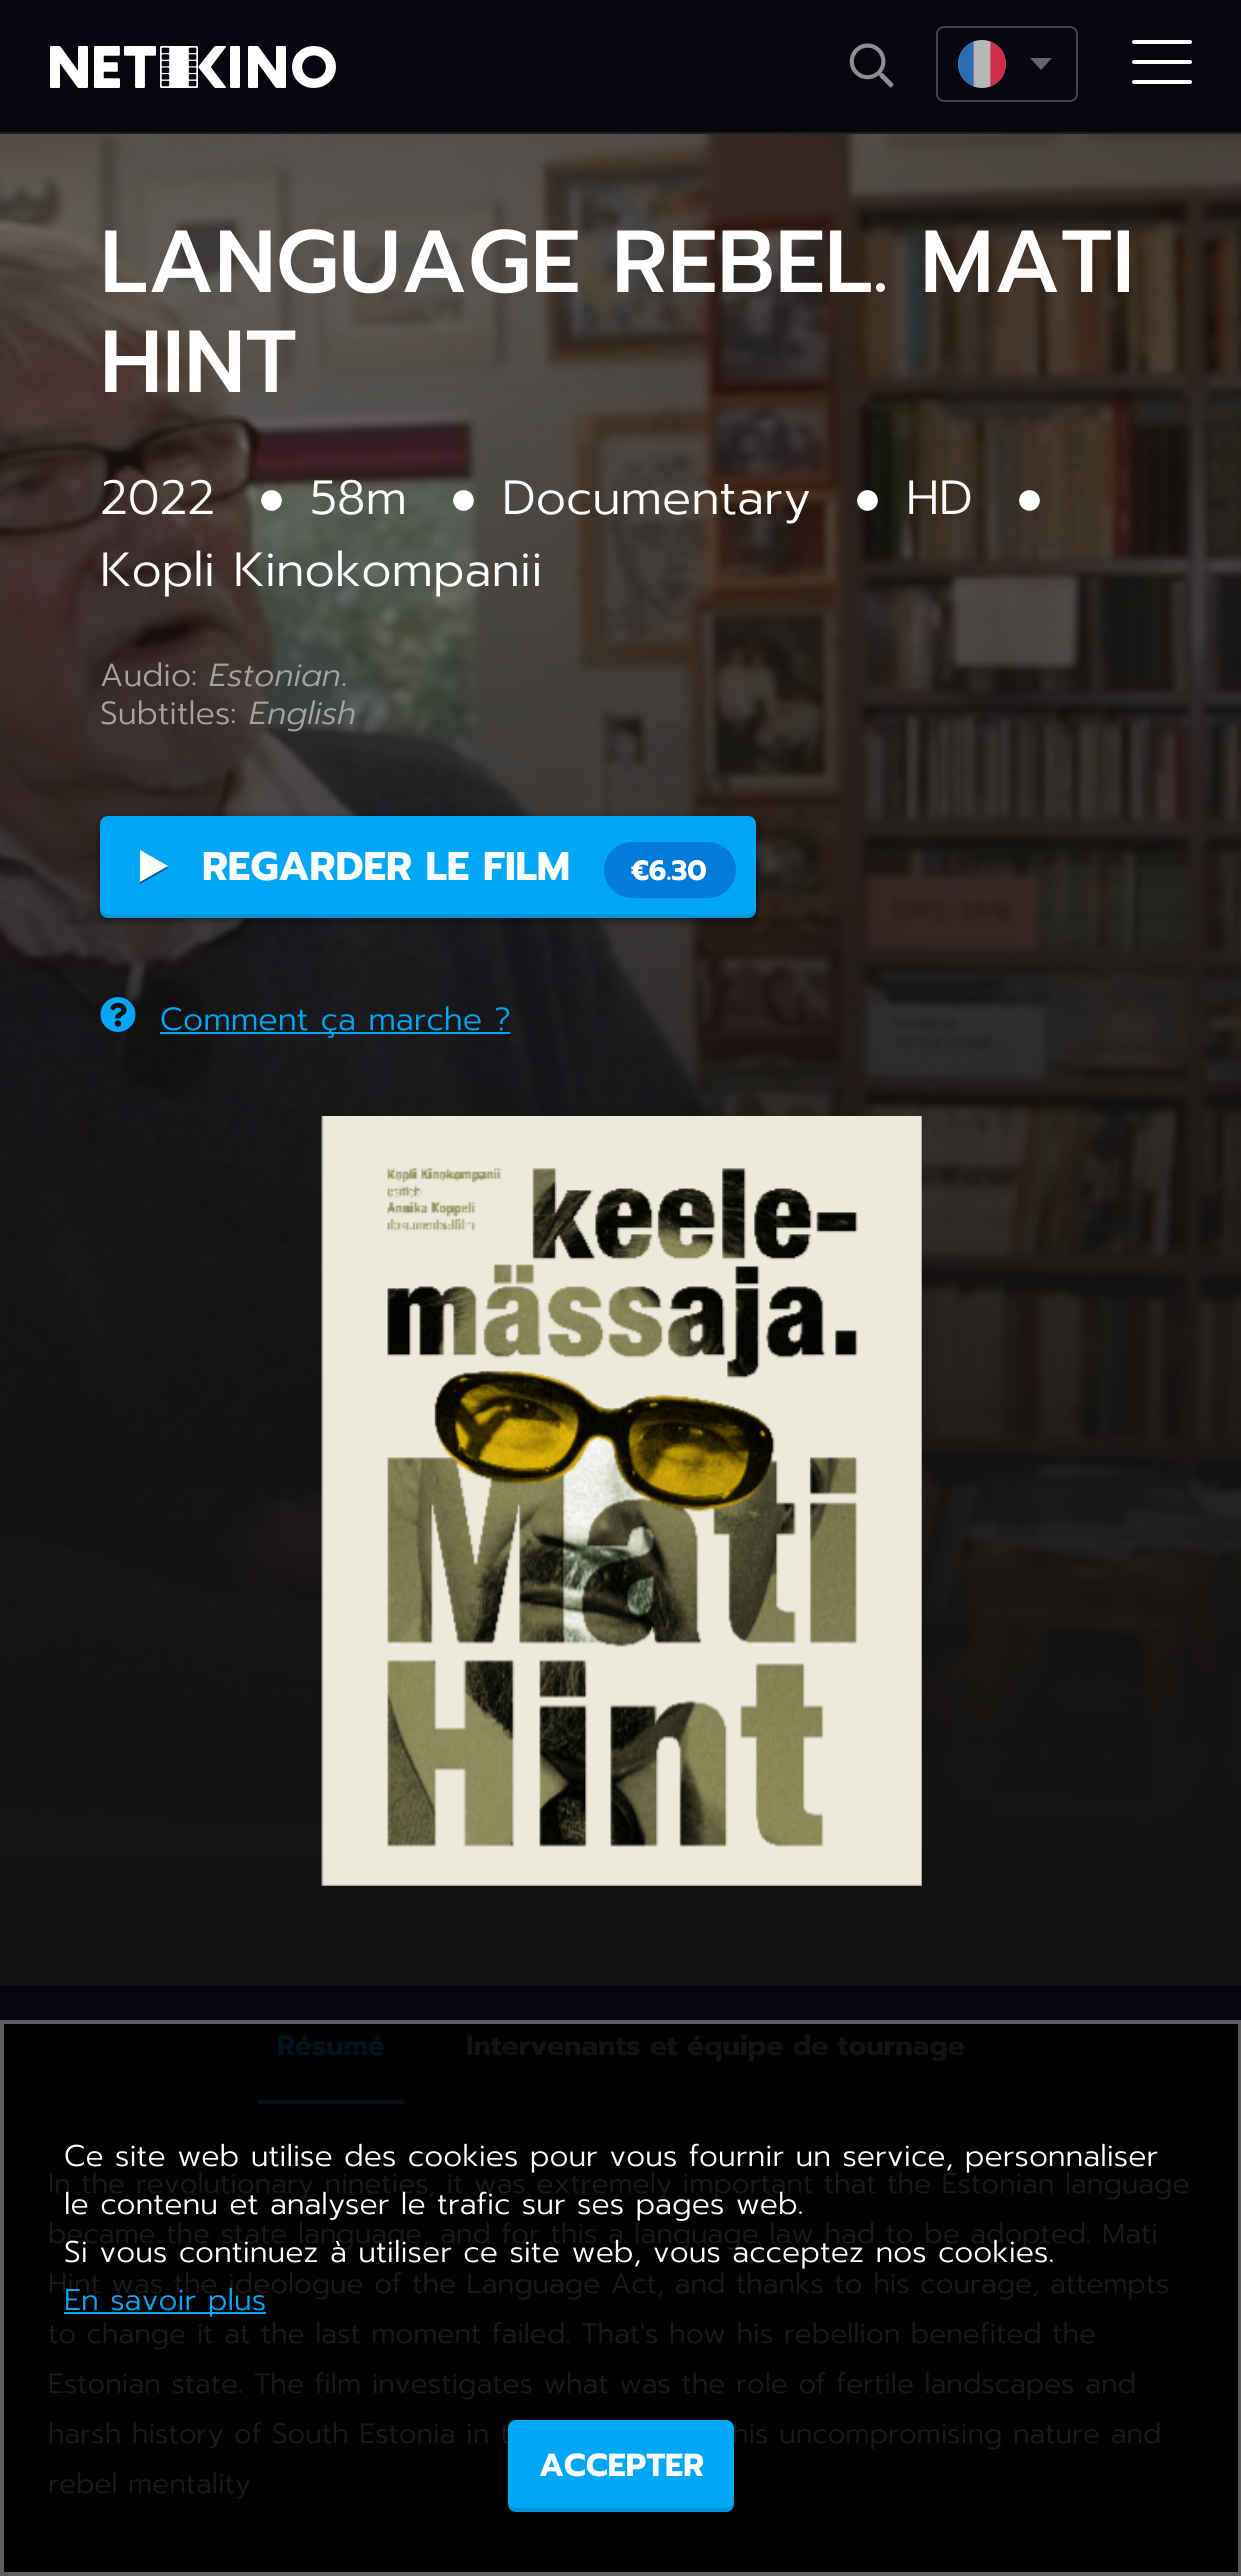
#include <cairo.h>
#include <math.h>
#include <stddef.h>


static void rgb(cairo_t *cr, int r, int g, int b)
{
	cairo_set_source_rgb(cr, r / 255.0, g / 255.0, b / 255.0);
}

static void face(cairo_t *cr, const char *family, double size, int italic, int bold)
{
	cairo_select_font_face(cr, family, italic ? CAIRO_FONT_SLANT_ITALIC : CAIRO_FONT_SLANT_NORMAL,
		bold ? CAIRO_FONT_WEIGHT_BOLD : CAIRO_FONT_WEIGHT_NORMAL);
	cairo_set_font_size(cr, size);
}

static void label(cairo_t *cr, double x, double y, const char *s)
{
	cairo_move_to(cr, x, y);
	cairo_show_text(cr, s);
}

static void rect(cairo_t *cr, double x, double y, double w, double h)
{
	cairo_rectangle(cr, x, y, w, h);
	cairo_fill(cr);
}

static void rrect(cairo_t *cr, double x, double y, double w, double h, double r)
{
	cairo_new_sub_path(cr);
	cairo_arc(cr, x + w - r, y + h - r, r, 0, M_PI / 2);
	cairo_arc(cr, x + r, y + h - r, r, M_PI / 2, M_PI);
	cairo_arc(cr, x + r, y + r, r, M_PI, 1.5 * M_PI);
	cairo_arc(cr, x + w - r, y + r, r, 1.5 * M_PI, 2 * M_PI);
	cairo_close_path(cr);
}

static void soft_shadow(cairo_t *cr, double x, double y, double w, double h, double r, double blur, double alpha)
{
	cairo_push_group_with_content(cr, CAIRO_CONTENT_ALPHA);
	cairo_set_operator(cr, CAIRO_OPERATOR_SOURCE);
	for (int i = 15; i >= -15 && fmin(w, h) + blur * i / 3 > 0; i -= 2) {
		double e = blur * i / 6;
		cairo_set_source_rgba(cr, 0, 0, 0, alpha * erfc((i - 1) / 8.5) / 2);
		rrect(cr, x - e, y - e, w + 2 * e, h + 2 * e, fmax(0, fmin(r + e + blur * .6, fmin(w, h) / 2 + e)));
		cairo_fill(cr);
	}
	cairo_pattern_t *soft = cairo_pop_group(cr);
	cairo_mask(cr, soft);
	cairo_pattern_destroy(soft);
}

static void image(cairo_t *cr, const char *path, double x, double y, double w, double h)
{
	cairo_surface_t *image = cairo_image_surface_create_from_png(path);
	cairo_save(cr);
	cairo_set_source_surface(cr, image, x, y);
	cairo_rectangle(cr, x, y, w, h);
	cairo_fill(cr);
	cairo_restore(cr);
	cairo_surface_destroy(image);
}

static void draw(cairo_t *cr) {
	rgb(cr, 0, 0, 0);
	cairo_paint(cr);
	rgb(cr, 6, 6, 14);
	rect(cr, 0, 0, 1241, 132);
	rgb(cr, 28, 28, 28);
	rect(cr, 0, 132, 1241, 2);
	image(cr, "image0.png", 50, 46, 286, 42);
	image(cr, "image1.png", 849, 43, 45, 45);
	rrect(cr, 937, 27, 140, 74, 7);
	rgb(cr, 68, 68, 70);
	cairo_stroke(cr);
	image(cr, "image2.png", 958, 40, 48, 48);
	rgb(cr, 101, 101, 105);
	cairo_set_fill_rule(cr, CAIRO_FILL_RULE_EVEN_ODD);
	cairo_new_path(cr);
	cairo_move_to(cr, 1041, 70);
	cairo_line_to(cr, 1030, 58);
	cairo_line_to(cr, 1052, 58);
	cairo_close_path(cr);
	cairo_fill(cr);
	rgb(cr, 255, 255, 255);
	rrect(cr, 1132, 60, 60, 4, 2);
	cairo_fill(cr);
	rrect(cr, 1132, 40, 60, 4, 2);
	cairo_fill(cr);
	rrect(cr, 1132, 80, 60, 4, 2);
	cairo_fill(cr);
	image(cr, "image3.png", 0, 134, 1241, 1852);
	face(cr, "Prompt Medium", 88, 0, 0);
	label(cr, 100, 292, "LANGUAGE REBEL. MATI");
	label(cr, 100, 392, "HINT");
	face(cr, "Prompt Light", 48, 0, 0);
	label(cr, 100, 514, "2022");
	face(cr, "Liberation Sans", 48, 0, 0);
	label(cr, 257, 514, "●");
	face(cr, "Prompt Light", 48, 0, 0);
	label(cr, 310, 514, "58m");
	face(cr, "Liberation Sans", 48, 0, 0);
	label(cr, 449, 514, "●");
	face(cr, "Prompt Light", 48, 0, 0);
	label(cr, 502, 514, "Documentary");
	face(cr, "Liberation Sans", 48, 0, 0);
	label(cr, 853, 514, "●");
	face(cr, "Prompt Light", 48, 0, 0);
	label(cr, 906, 514, "HD");
	face(cr, "Liberation Sans", 48, 0, 0);
	label(cr, 1015, 514, "●");
	face(cr, "Prompt Light", 48, 0, 0);
	label(cr, 100, 586, "Kopli Kinokompanii");
	face(cr, "Prompt Light", 32, 0, 0);
	rgb(cr, 163, 163, 163);
	label(cr, 100, 686, "Audio:");
	face(cr, "Prompt Light", 32, 1, 0);
	label(cr, 209, 686, "Estonian");
	face(cr, "Prompt Light", 32, 0, 0);
	label(cr, 341, 686, ".");
	label(cr, 100, 724, "Subtitles:");
	face(cr, "Prompt Light", 32, 1, 0);
	label(cr, 249, 724, "English");
	rgb(cr, 0, 0, 0);
	soft_shadow(cr, 100, 818, 656, 102, 8, 4, 0.5);
	rgb(cr, 0, 167, 246);
	rrect(cr, 100, 816, 656, 102, 8);
	cairo_fill(cr);
	cairo_set_source_rgba(cr, 0, 0, 0, 0.11);
	cairo_set_fill_rule(cr, CAIRO_FILL_RULE_WINDING);
	cairo_new_path(cr);
	cairo_move_to(cr, 100, 906);
	cairo_curve_to(cr, 100, 912, 101, 918, 108, 918);
	cairo_line_to(cr, 748, 918);
	cairo_curve_to(cr, 755, 918, 756, 912, 756, 906);
	cairo_curve_to(cr, 756, 910, 752, 914, 748, 914);
	cairo_line_to(cr, 108, 914);
	cairo_curve_to(cr, 104, 914, 100, 910, 100, 906);
	cairo_close_path(cr);
	cairo_fill(cr);
	rgb(cr, 0, 84, 123);
	cairo_set_fill_rule(cr, CAIRO_FILL_RULE_EVEN_ODD);
	cairo_new_path(cr);
	cairo_move_to(cr, 168, 868);
	cairo_line_to(cr, 140, 884);
	cairo_line_to(cr, 140, 852);
	cairo_close_path(cr);
	cairo_fill(cr);
	rgb(cr, 255, 255, 255);
	cairo_new_path(cr);
	cairo_move_to(cr, 168, 866);
	cairo_line_to(cr, 140, 882);
	cairo_line_to(cr, 140, 850);
	cairo_close_path(cr);
	cairo_fill(cr);
	face(cr, "Prompt", 40, 0, 1);
	label(cr, 202, 880, "REGARDER LE FILM");
	rgb(cr, 0, 123, 218);
	rrect(cr, 604, 842, 132, 56, 28);
	cairo_fill(cr);
	face(cr, "Prompt", 28, 0, 1);
	rgb(cr, 255, 255, 255);
	label(cr, 631, 880, "€6.30");
	image(cr, "image4.png", 100, 997, 36, 35);
	rgb(cr, 0, 167, 246);
	rect(cr, 160, 1032, 350, 2);
	face(cr, "Prompt Light", 32, 0, 0);
	label(cr, 160, 1030, "Comment ça marche ?");
	image(cr, "image5.png", 321, 1116, 601, 770);
	rgb(cr, 6, 6, 14);
	rect(cr, 0, 1986, 1241, 34);
	rgb(cr, 0, 17, 25);
	rect(cr, 258, 2100, 146, 4);
	face(cr, "Prompt", 28, 0, 1);
	label(cr, 277, 2055, "Résumé");
	rgb(cr, 18, 18, 18);
	label(cr, 466, 2055, "Intervenants et équipe de tournage");
	face(cr, "Prompt Light", 28, 0, 0);
	rgb(cr, 25, 25, 25);
	label(cr, 48, 2193, "In the revolutionary nineties, it was extremely important that the Estonian language");
	label(cr, 48, 2243, "became the state language, and for this a language law had to be adopted. Mati");
	label(cr, 48, 2293, "Hint was the ideologue of the Language Act, and thanks to his courage, attempts");
	label(cr, 48, 2343, "to change it at the last moment failed. That's how his rebellion benefited the");
	label(cr, 48, 2393, "Estonian state. The film investigates what was the role of fertile landscapes and");
	label(cr, 48, 2443, "harsh history of South Estonia in t");
	label(cr, 732, 2443, "his uncompromising nature and");
	label(cr, 48, 2493, "rebel mentality");
	cairo_rectangle(cr, 2, 2022, 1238, 552);
	rgb(cr, 94, 94, 94);
	cairo_set_line_width(cr, 4);
	cairo_stroke(cr);
	face(cr, "Prompt Light", 30, 0, 0);
	rgb(cr, 255, 255, 255);
	label(cr, 64, 2166, "Ce site web utilise des cookies pour vous fournir un service, personnaliser");
	label(cr, 64, 2214, "le contenu et analyser le trafic sur ses pages web.");
	label(cr, 64, 2262, "Si vous continuez à utiliser ce site web, vous acceptez nos cookies.");
	rgb(cr, 0, 167, 246);
	rect(cr, 64, 2312, 202, 2);
	label(cr, 64, 2310, "En savoir plus");
	rrect(cr, 508, 2420, 226, 92, 8);
	cairo_fill(cr);
	cairo_set_source_rgba(cr, 0, 0, 0, 0.11);
	cairo_set_fill_rule(cr, CAIRO_FILL_RULE_WINDING);
	cairo_new_path(cr);
	cairo_move_to(cr, 508, 2500);
	cairo_line_to(cr, 508, 2504);
	cairo_curve_to(cr, 508, 2508, 512, 2512, 516, 2512);
	cairo_line_to(cr, 726, 2512);
	cairo_curve_to(cr, 730, 2512, 734, 2508, 734, 2504);
	cairo_line_to(cr, 734, 2500);
	cairo_curve_to(cr, 734, 2504, 730, 2508, 726, 2508);
	cairo_line_to(cr, 516, 2508);
	cairo_curve_to(cr, 512, 2508, 508, 2504, 508, 2500);
	cairo_close_path(cr);
	cairo_fill(cr);
	face(cr, "Prompt", 32, 0, 1);
	rgb(cr, 255, 255, 255);
	label(cr, 539, 2476, "ACCEPTER");
}

int main(void) {
	cairo_surface_t *surface = cairo_image_surface_create(CAIRO_FORMAT_RGB24, 1241, 2576);
	cairo_t *cr = cairo_create(surface);
	cairo_font_options_t *options = cairo_font_options_create();
	cairo_font_options_set_hint_metrics(options, CAIRO_HINT_METRICS_OFF);
	cairo_font_options_set_hint_style(options, CAIRO_HINT_STYLE_NONE);
	cairo_set_font_options(cr, options);
	cairo_set_miter_limit(cr, 4);
	draw(cr);
	cairo_surface_write_to_png(surface, "render.png");
	cairo_font_options_destroy(options);
	cairo_destroy(cr);
	cairo_surface_destroy(surface);
	return 0;
}
